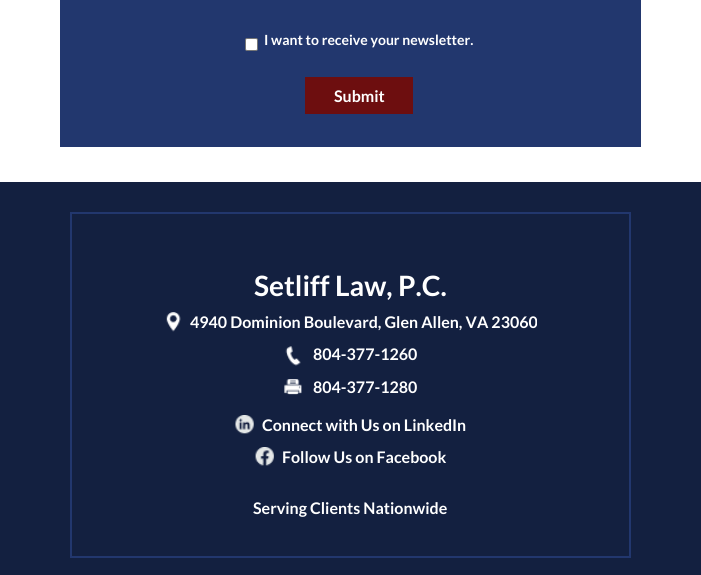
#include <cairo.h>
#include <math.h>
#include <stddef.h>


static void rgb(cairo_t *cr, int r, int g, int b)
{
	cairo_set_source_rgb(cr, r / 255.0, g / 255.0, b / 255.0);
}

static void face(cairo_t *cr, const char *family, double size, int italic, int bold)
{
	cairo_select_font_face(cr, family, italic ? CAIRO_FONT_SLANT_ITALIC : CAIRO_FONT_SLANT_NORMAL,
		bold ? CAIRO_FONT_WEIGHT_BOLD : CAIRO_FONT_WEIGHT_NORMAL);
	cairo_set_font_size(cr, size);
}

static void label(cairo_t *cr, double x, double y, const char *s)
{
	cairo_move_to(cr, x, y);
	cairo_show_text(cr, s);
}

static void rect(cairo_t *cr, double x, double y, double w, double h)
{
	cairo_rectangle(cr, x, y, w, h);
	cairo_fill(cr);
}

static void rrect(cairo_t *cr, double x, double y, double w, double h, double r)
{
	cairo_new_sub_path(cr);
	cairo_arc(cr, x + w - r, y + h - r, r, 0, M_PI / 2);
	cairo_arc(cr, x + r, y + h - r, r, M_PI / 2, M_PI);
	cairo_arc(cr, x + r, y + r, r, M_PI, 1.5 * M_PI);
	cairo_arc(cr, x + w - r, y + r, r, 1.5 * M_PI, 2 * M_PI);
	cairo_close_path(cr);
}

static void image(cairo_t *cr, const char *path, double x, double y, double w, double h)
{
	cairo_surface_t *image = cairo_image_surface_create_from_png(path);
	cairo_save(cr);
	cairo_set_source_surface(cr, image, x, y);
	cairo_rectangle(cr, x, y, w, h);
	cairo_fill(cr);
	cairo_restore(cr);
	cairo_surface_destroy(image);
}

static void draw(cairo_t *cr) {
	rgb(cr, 255, 255, 255);
	cairo_paint(cr);
	rgb(cr, 34, 55, 110);
	rect(cr, 60, 0, 581, 147);
	rgb(cr, 255, 255, 255);
	rrect(cr, 245.5, 38.5, 12, 12, 1.5);
	cairo_fill_preserve(cr);
	rgb(cr, 118, 118, 118);
	cairo_set_line_width(cr, 1);
	cairo_stroke(cr);
	face(cr, "Lato", 14, 0, 1);
	rgb(cr, 255, 255, 255);
	label(cr, 264, 45, "I want to receive your newsletter.");
	rgb(cr, 109, 14, 15);
	rect(cr, 307, 79, 104, 33);
	cairo_rectangle(cr, 306, 78, 106, 35);
	cairo_set_line_width(cr, 2);
	cairo_stroke(cr);
	face(cr, "Lato", 16, 0, 1);
	rgb(cr, 255, 255, 255);
	label(cr, 334, 102, "Submit");
	rgb(cr, 19, 32, 64);
	rect(cr, 0, 182, 701, 393);
	cairo_rectangle(cr, 71, 213, 559, 344);
	rgb(cr, 34, 55, 110);
	cairo_stroke(cr);
	face(cr, "Lato", 28, 0, 1);
	rgb(cr, 255, 255, 255);
	label(cr, 254, 296, "Setliff Law, P.C.");
	image(cr, "image0.png", 166, 312, 15, 20);
	face(cr, "Lato", 16, 0, 1);
	label(cr, 190, 328, "4940 Dominion Boulevard, Glen Allen, VA 23060");
	image(cr, "image1.png", 285, 346, 16, 20);
	label(cr, 313, 360, "804-377-1260");
	image(cr, "image2.png", 284, 379, 18, 16);
	label(cr, 313, 393, "804-377-1280");
	image(cr, "image3.png", 235, 415, 19, 19);
	label(cr, 262, 431, "Connect with Us on LinkedIn");
	image(cr, "image4.png", 255, 447, 19, 19);
	label(cr, 282, 463, "Follow Us on Facebook");
	label(cr, 253, 514, "Serving Clients Nationwide");
}

int main(void) {
	cairo_surface_t *surface = cairo_image_surface_create(CAIRO_FORMAT_RGB24, 701, 575);
	cairo_t *cr = cairo_create(surface);
	cairo_font_options_t *options = cairo_font_options_create();
	cairo_font_options_set_hint_metrics(options, CAIRO_HINT_METRICS_OFF);
	cairo_font_options_set_hint_style(options, CAIRO_HINT_STYLE_NONE);
	cairo_set_font_options(cr, options);
	cairo_set_miter_limit(cr, 4);
	draw(cr);
	cairo_surface_write_to_png(surface, "render.png");
	cairo_font_options_destroy(options);
	cairo_destroy(cr);
	cairo_surface_destroy(surface);
	return 0;
}
